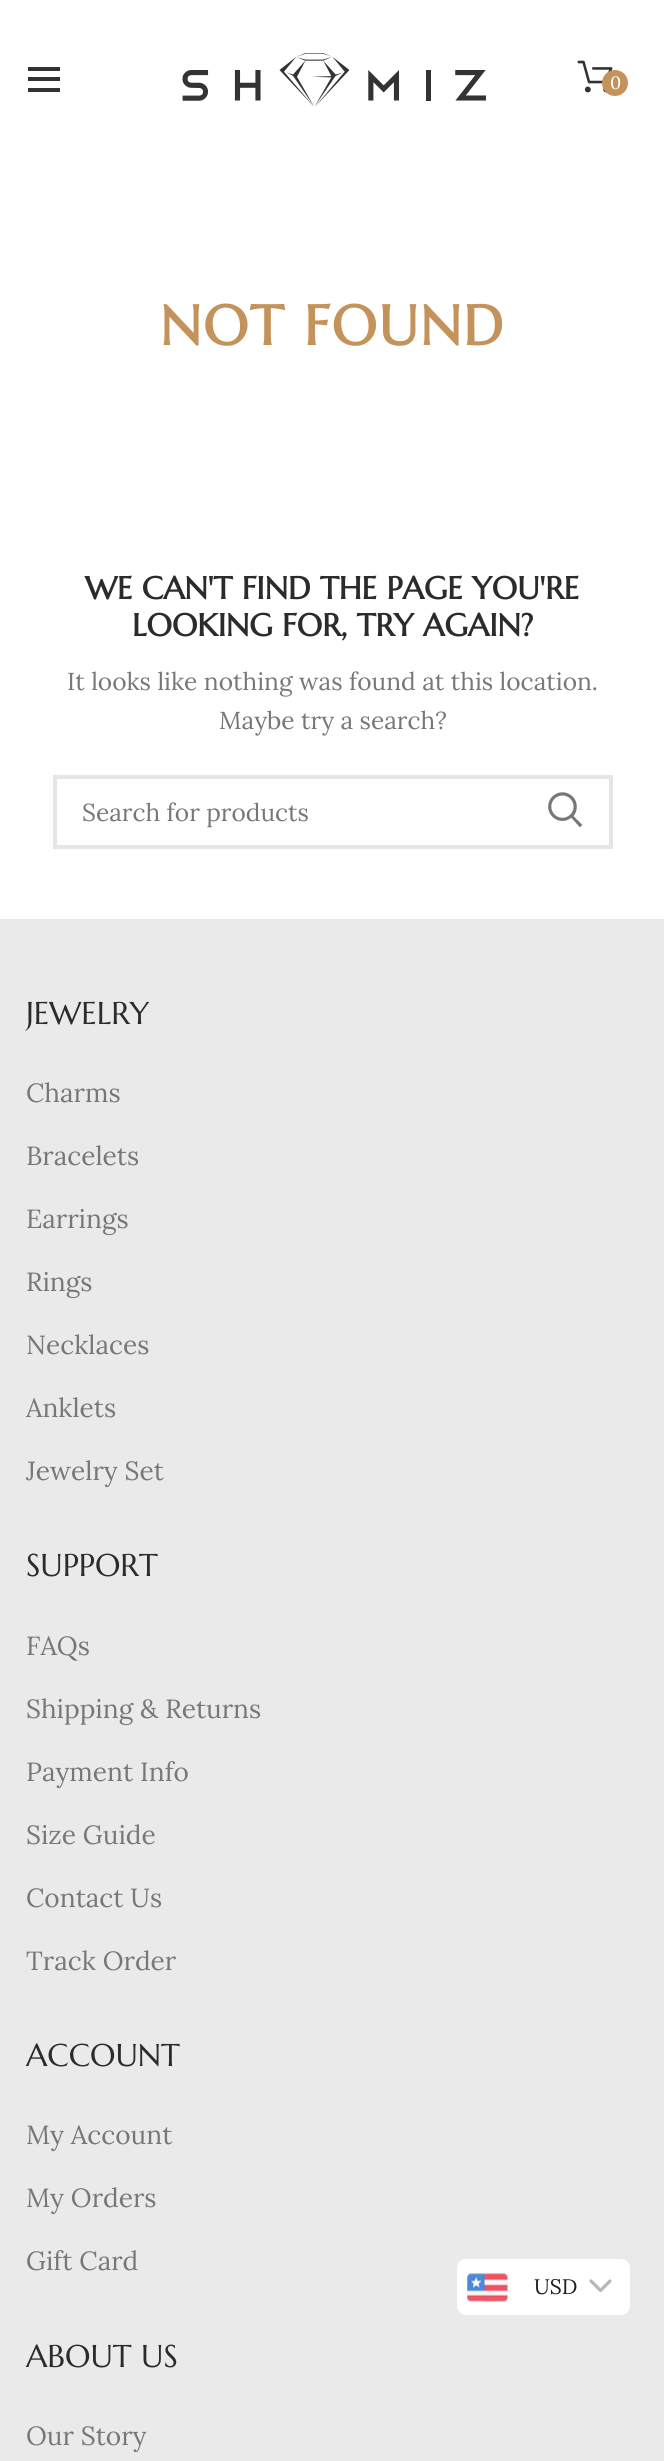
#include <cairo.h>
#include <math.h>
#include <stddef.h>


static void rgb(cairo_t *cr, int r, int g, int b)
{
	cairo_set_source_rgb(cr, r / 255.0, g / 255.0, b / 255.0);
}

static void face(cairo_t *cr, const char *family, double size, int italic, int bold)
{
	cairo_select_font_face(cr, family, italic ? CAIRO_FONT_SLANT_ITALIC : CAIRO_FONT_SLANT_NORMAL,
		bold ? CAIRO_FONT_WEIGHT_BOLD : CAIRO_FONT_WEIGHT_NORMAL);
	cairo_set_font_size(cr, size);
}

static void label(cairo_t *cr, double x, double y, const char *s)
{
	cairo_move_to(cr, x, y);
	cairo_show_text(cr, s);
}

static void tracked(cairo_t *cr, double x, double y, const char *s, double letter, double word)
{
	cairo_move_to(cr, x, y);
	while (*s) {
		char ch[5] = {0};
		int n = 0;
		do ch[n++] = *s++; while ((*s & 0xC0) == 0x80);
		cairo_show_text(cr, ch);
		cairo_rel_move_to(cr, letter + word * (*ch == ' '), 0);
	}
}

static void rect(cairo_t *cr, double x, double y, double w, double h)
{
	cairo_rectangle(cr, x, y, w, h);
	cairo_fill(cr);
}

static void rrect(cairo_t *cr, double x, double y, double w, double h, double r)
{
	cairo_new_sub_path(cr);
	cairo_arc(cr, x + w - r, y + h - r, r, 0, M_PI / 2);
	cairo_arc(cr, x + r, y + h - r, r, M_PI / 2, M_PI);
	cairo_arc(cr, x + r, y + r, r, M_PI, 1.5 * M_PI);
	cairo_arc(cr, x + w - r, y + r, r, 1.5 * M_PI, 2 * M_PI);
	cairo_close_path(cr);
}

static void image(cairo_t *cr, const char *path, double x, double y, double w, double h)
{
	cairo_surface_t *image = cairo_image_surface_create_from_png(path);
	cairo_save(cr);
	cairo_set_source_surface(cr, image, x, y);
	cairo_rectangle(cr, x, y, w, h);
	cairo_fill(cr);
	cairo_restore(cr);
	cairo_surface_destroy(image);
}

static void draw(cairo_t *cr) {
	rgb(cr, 255, 255, 255);
	cairo_paint(cr);
	rgb(cr, 51, 51, 51);
	rect(cr, 28, 77, 32, 4);
	rect(cr, 28, 67, 32, 4);
	rect(cr, 28, 88, 32, 4);
	image(cr, "image0.png", 182, 53, 304, 54);
	image(cr, "image1.png", 577, 60, 36, 33);
	rgb(cr, 195, 147, 91);
	cairo_arc(cr, 615, 83, 13, 0, 2 * M_PI);
	cairo_fill(cr);
	face(cr, "Lora", 18, 0, 0);
	rgb(cr, 255, 255, 255);
	label(cr, 610, 89, "0");
	face(cr, "Marcellus SC", 56, 0, 1);
	rgb(cr, 195, 147, 91);
	tracked(cr, 160, 345, "NOT FOUND", 1.75, 0);
	face(cr, "Marcellus SC", 31.5, 0, 1);
	rgb(cr, 45, 42, 42);
	label(cr, 85, 599, "WE CAN'T FIND THE PAGE YOU'RE");
	label(cr, 132, 636, "LOOKING FOR, TRY AGAIN?");
	face(cr, "Lora", 24.5, 0, 0);
	rgb(cr, 119, 119, 119);
	label(cr, 67, 690, "It looks like nothing was found at this location.");
	label(cr, 219, 729, "Maybe try a search?");
	cairo_rectangle(cr, 55, 777, 556, 70);
	rgb(cr, 230, 230, 230);
	cairo_set_line_width(cr, 4);
	cairo_stroke(cr);
	rgb(cr, 119, 119, 119);
	label(cr, 82, 821, "Search for products");
	image(cr, "image2.png", 548, 792, 35, 36);
	rgb(cr, 234, 234, 234);
	rect(cr, 0, 919, 664, 1542);
	face(cr, "Marcellus SC", 31.5, 0, 0);
	rgb(cr, 45, 42, 42);
	label(cr, 26, 1024, "JEWELRY");
	face(cr, "Lora", 26.25, 0, 0);
	rgb(cr, 119, 119, 119);
	label(cr, 26, 1102, "Charms");
	label(cr, 26, 1165, "Bracelets");
	label(cr, 26, 1228, "Earrings");
	label(cr, 26, 1291, "Rings");
	label(cr, 26, 1354, "Necklaces");
	label(cr, 26, 1417, "Anklets");
	label(cr, 26, 1480, "Jewelry Set");
	face(cr, "Marcellus SC", 31.5, 0, 0);
	rgb(cr, 45, 42, 42);
	label(cr, 26, 1576, "SUPPORT");
	face(cr, "Lora", 26.25, 0, 0);
	rgb(cr, 119, 119, 119);
	label(cr, 26, 1655, "FAQs");
	label(cr, 26, 1718, "Shipping & Returns");
	label(cr, 26, 1781, "Payment Info");
	label(cr, 26, 1844, "Size Guide");
	label(cr, 26, 1907, "Contact Us");
	label(cr, 26, 1970, "Track Order");
	face(cr, "Marcellus SC", 31.5, 0, 0);
	rgb(cr, 45, 42, 42);
	label(cr, 26, 2066, "ACCOUNT");
	face(cr, "Lora", 26.25, 0, 0);
	rgb(cr, 119, 119, 119);
	label(cr, 26, 2144, "My Account");
	label(cr, 26, 2207, "My Orders");
	label(cr, 26, 2270, "Gift Card");
	face(cr, "Marcellus SC", 31.5, 0, 0);
	rgb(cr, 45, 42, 42);
	label(cr, 26, 2367, "ABOUT US");
	face(cr, "Lora", 26.25, 0, 0);
	rgb(cr, 119, 119, 119);
	label(cr, 26, 2445, "Our Story");
	rgb(cr, 255, 255, 255);
	rrect(cr, 457, 2259, 173, 56, 9);
	cairo_fill(cr);
	image(cr, "image3.png", 467, 2273, 41, 29);
	face(cr, "Lora", 21, 0, 0);
	rgb(cr, 30, 30, 30);
	label(cr, 534, 2294, "USD");
	cairo_new_path(cr);
	cairo_move_to(cr, 591, 2281);
	cairo_line_to(cr, 600.5, 2290.5);
	cairo_line_to(cr, 610, 2281);
	rgb(cr, 183, 183, 183);
	cairo_set_line_width(cr, 3.2);
	cairo_set_line_cap(cr, CAIRO_LINE_CAP_ROUND);
	cairo_set_line_join(cr, CAIRO_LINE_JOIN_ROUND);
	cairo_stroke(cr);
}

int main(void) {
	cairo_surface_t *surface = cairo_image_surface_create(CAIRO_FORMAT_RGB24, 664, 2461);
	cairo_t *cr = cairo_create(surface);
	cairo_font_options_t *options = cairo_font_options_create();
	cairo_font_options_set_hint_metrics(options, CAIRO_HINT_METRICS_OFF);
	cairo_font_options_set_hint_style(options, CAIRO_HINT_STYLE_NONE);
	cairo_set_font_options(cr, options);
	cairo_set_miter_limit(cr, 4);
	draw(cr);
	cairo_surface_write_to_png(surface, "render.png");
	cairo_font_options_destroy(options);
	cairo_destroy(cr);
	cairo_surface_destroy(surface);
	return 0;
}
